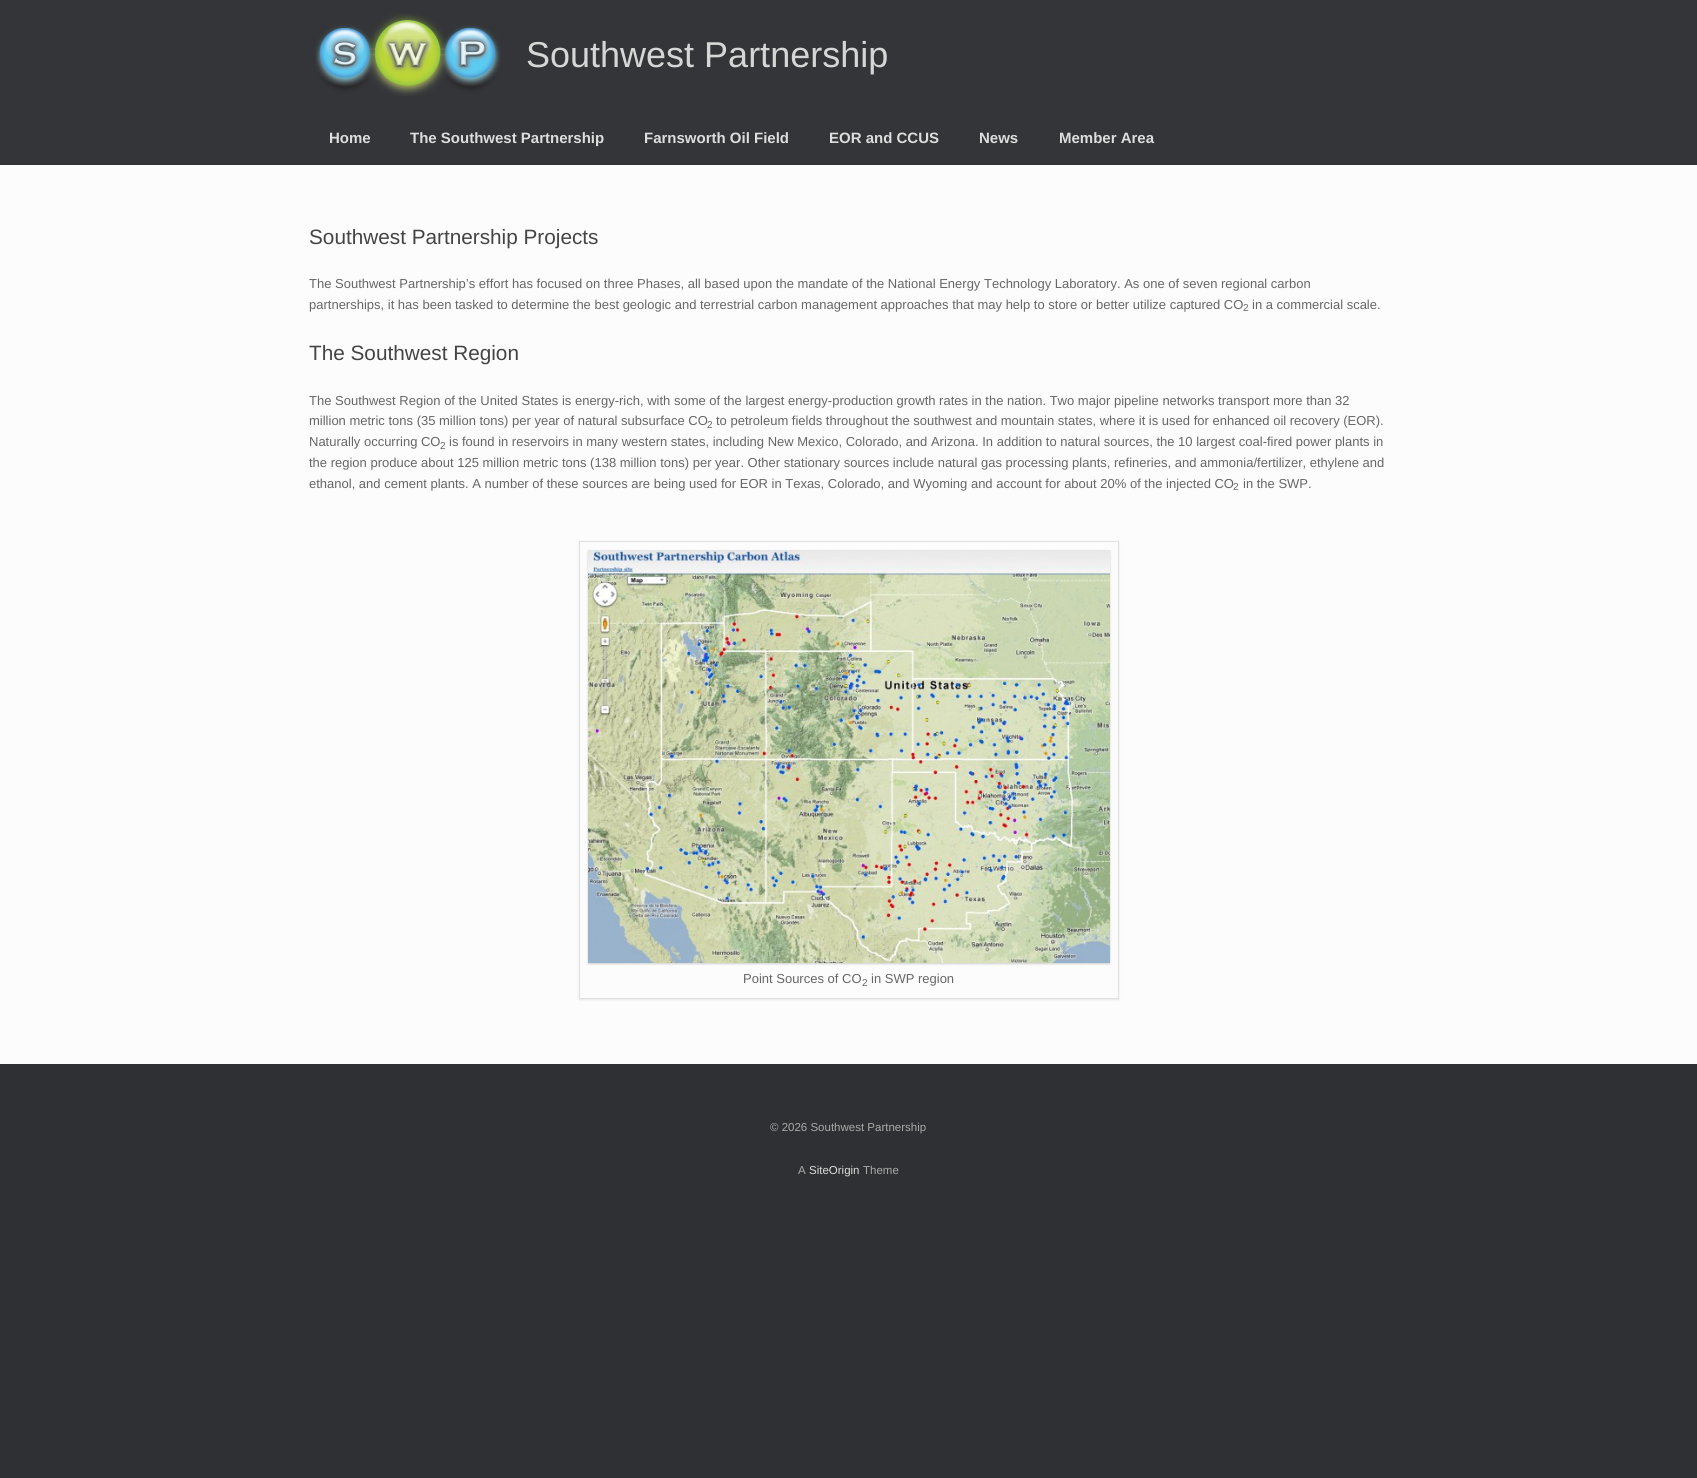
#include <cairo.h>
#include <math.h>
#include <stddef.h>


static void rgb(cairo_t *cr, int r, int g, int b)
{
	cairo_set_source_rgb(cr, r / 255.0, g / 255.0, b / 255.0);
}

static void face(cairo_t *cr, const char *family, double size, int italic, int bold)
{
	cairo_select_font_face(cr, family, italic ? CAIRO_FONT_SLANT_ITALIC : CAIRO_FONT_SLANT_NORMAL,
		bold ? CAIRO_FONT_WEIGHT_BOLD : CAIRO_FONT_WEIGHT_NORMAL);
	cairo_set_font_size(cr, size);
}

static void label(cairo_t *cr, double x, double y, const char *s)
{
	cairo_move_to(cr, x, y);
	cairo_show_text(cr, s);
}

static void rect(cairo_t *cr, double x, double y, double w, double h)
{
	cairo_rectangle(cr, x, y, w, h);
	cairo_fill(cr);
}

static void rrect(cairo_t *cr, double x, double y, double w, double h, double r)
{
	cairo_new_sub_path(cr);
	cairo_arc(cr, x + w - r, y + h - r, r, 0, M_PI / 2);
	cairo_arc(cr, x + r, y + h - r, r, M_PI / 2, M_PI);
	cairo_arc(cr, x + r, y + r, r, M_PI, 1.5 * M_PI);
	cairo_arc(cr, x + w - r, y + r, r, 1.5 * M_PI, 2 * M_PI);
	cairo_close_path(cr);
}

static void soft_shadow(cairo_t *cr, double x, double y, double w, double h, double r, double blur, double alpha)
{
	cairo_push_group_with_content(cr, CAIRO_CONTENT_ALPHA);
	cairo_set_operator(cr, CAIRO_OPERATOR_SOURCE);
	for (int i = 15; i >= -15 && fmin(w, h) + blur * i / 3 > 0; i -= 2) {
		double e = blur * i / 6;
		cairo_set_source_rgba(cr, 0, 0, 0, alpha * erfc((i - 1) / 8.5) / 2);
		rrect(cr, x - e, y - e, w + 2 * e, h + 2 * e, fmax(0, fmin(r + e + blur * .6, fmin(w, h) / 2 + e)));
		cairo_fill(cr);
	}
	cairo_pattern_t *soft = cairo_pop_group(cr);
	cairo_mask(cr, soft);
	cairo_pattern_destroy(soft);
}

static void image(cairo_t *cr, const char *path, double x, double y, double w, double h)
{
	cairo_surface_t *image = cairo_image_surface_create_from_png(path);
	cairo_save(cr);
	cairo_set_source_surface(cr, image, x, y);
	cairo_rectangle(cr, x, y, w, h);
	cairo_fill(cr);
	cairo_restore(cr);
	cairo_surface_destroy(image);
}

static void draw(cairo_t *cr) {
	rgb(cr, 47, 48, 51);
	cairo_paint(cr);
	rgb(cr, 52, 53, 56);
	rect(cr, 0, 0, 1697, 165);
	image(cr, "image0.png", 315, 13, 186, 83);
	face(cr, "Liberation Sans", 36, 0, 0);
	rgb(cr, 214, 214, 214);
	label(cr, 526, 67, "Southwest Partnership");
	face(cr, "Liberation Sans", 15, 0, 1);
	rgb(cr, 221, 221, 221);
	label(cr, 329, 143, "Home");
	label(cr, 410, 143, "The Southwest Partnership");
	label(cr, 644, 143, "Farnsworth Oil Field");
	label(cr, 829, 143, "EOR and CCUS");
	label(cr, 979, 143, "News");
	label(cr, 1059, 143, "Member Area");
	rgb(cr, 252, 252, 252);
	rect(cr, 0, 165, 1697, 899);
	face(cr, "Liberation Sans", 20.75, 0, 0);
	rgb(cr, 68, 68, 68);
	label(cr, 309, 244, "Southwest Partnership Projects");
	face(cr, "Liberation Sans", 13, 0, 0);
	rgb(cr, 102, 102, 102);
	label(cr, 309, 288, "The Southwest Partnership’s effort has focused on three Phases, all based upon the mandate of the National Energy Technology Laboratory. As one of seven regional carbon");
	label(cr, 309, 309, "partnerships, it has been tasked to determine the best geologic and terrestrial carbon management approaches that may help to store or better utilize captured CO");
	face(cr, "Liberation Sans", 10, 0, 0);
	label(cr, 1243, 311, "2");
	face(cr, "Liberation Sans", 13, 0, 0);
	label(cr, 1252, 309, "in a commercial scale.");
	face(cr, "Liberation Sans", 20.75, 0, 0);
	rgb(cr, 68, 68, 68);
	label(cr, 309, 360, "The Southwest Region");
	face(cr, "Liberation Sans", 13, 0, 0);
	rgb(cr, 102, 102, 102);
	label(cr, 309, 405, "The Southwest Region of the United States is energy-rich, with some of the largest energy-production growth rates in the nation. Two major pipeline networks transport more than 32");
	label(cr, 309, 425, "million metric tons (35 million tons) per year of natural subsurface CO");
	face(cr, "Liberation Sans", 10, 0, 0);
	label(cr, 707, 428, "2");
	face(cr, "Liberation Sans", 13, 0, 0);
	label(cr, 716, 425, "to petroleum fields throughout the southwest and mountain states, where it is used for enhanced oil recovery (EOR).");
	label(cr, 309, 446, "Naturally occurring CO");
	face(cr, "Liberation Sans", 10, 0, 0);
	label(cr, 440, 449, "2");
	face(cr, "Liberation Sans", 13, 0, 0);
	label(cr, 449, 446, "is found in reservoirs in many western states, including New Mexico, Colorado, and Arizona. In addition to natural sources, the 10 largest coal-fired power plants in");
	label(cr, 309, 467, "the region produce about 125 million metric tons (138 million tons) per year. Other stationary sources include natural gas processing plants, refineries, and ammonia/fertilizer, ethylene and");
	label(cr, 309, 488, "ethanol, and cement plants. A number of these sources are being used for EOR in Texas, Colorado, and Wyoming and account for about 20% of the injected CO");
	face(cr, "Liberation Sans", 10, 0, 0);
	label(cr, 1233, 490, "2");
	face(cr, "Liberation Sans", 13, 0, 0);
	label(cr, 1243, 488, "in the SWP.");
	cairo_save(cr);
	cairo_set_fill_rule(cr, CAIRO_FILL_RULE_EVEN_ODD);
	cairo_new_path(cr);
	cairo_move_to(cr, 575, 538);
	cairo_line_to(cr, 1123, 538);
	cairo_line_to(cr, 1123, 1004);
	cairo_line_to(cr, 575, 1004);
	cairo_close_path(cr);
	cairo_move_to(cr, 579, 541);
	cairo_line_to(cr, 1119, 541);
	cairo_line_to(cr, 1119, 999);
	cairo_line_to(cr, 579, 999);
	cairo_close_path(cr);
	cairo_clip(cr);
	rgb(cr, 0, 0, 0);
	soft_shadow(cr, 579, 542, 540, 458, 0, 1, 0.09);
	cairo_restore(cr);
	cairo_rectangle(cr, 579.5, 541.5, 539, 457);
	rgb(cr, 224, 224, 224);
	cairo_set_line_width(cr, 1);
	cairo_stroke(cr);
	rgb(cr, 0, 0, 0);
	soft_shadow(cr, 588, 551, 522, 413, 0, 1, 0.18);
	image(cr, "image1.png", 588, 550, 522, 413);
	rgb(cr, 102, 102, 102);
	label(cr, 743, 983, "Point Sources of CO");
	face(cr, "Liberation Sans", 10, 0, 0);
	label(cr, 862, 986, "2");
	face(cr, "Liberation Sans", 13, 0, 0);
	label(cr, 871, 983, "in SWP region");
	face(cr, "Liberation Sans", 11.5, 0, 0);
	rgb(cr, 170, 170, 170);
	label(cr, 770, 1131, "© 2026 Southwest Partnership");
	label(cr, 798, 1174, "A");
	rgb(cr, 221, 221, 221);
	label(cr, 809, 1174, "SiteOrigin");
	rgb(cr, 170, 170, 170);
	label(cr, 863, 1174, "Theme");
}

int main(void) {
	cairo_surface_t *surface = cairo_image_surface_create(CAIRO_FORMAT_RGB24, 1697, 1478);
	cairo_t *cr = cairo_create(surface);
	cairo_font_options_t *options = cairo_font_options_create();
	cairo_font_options_set_hint_metrics(options, CAIRO_HINT_METRICS_OFF);
	cairo_font_options_set_hint_style(options, CAIRO_HINT_STYLE_NONE);
	cairo_set_font_options(cr, options);
	cairo_set_miter_limit(cr, 4);
	draw(cr);
	cairo_surface_write_to_png(surface, "render.png");
	cairo_font_options_destroy(options);
	cairo_destroy(cr);
	cairo_surface_destroy(surface);
	return 0;
}
